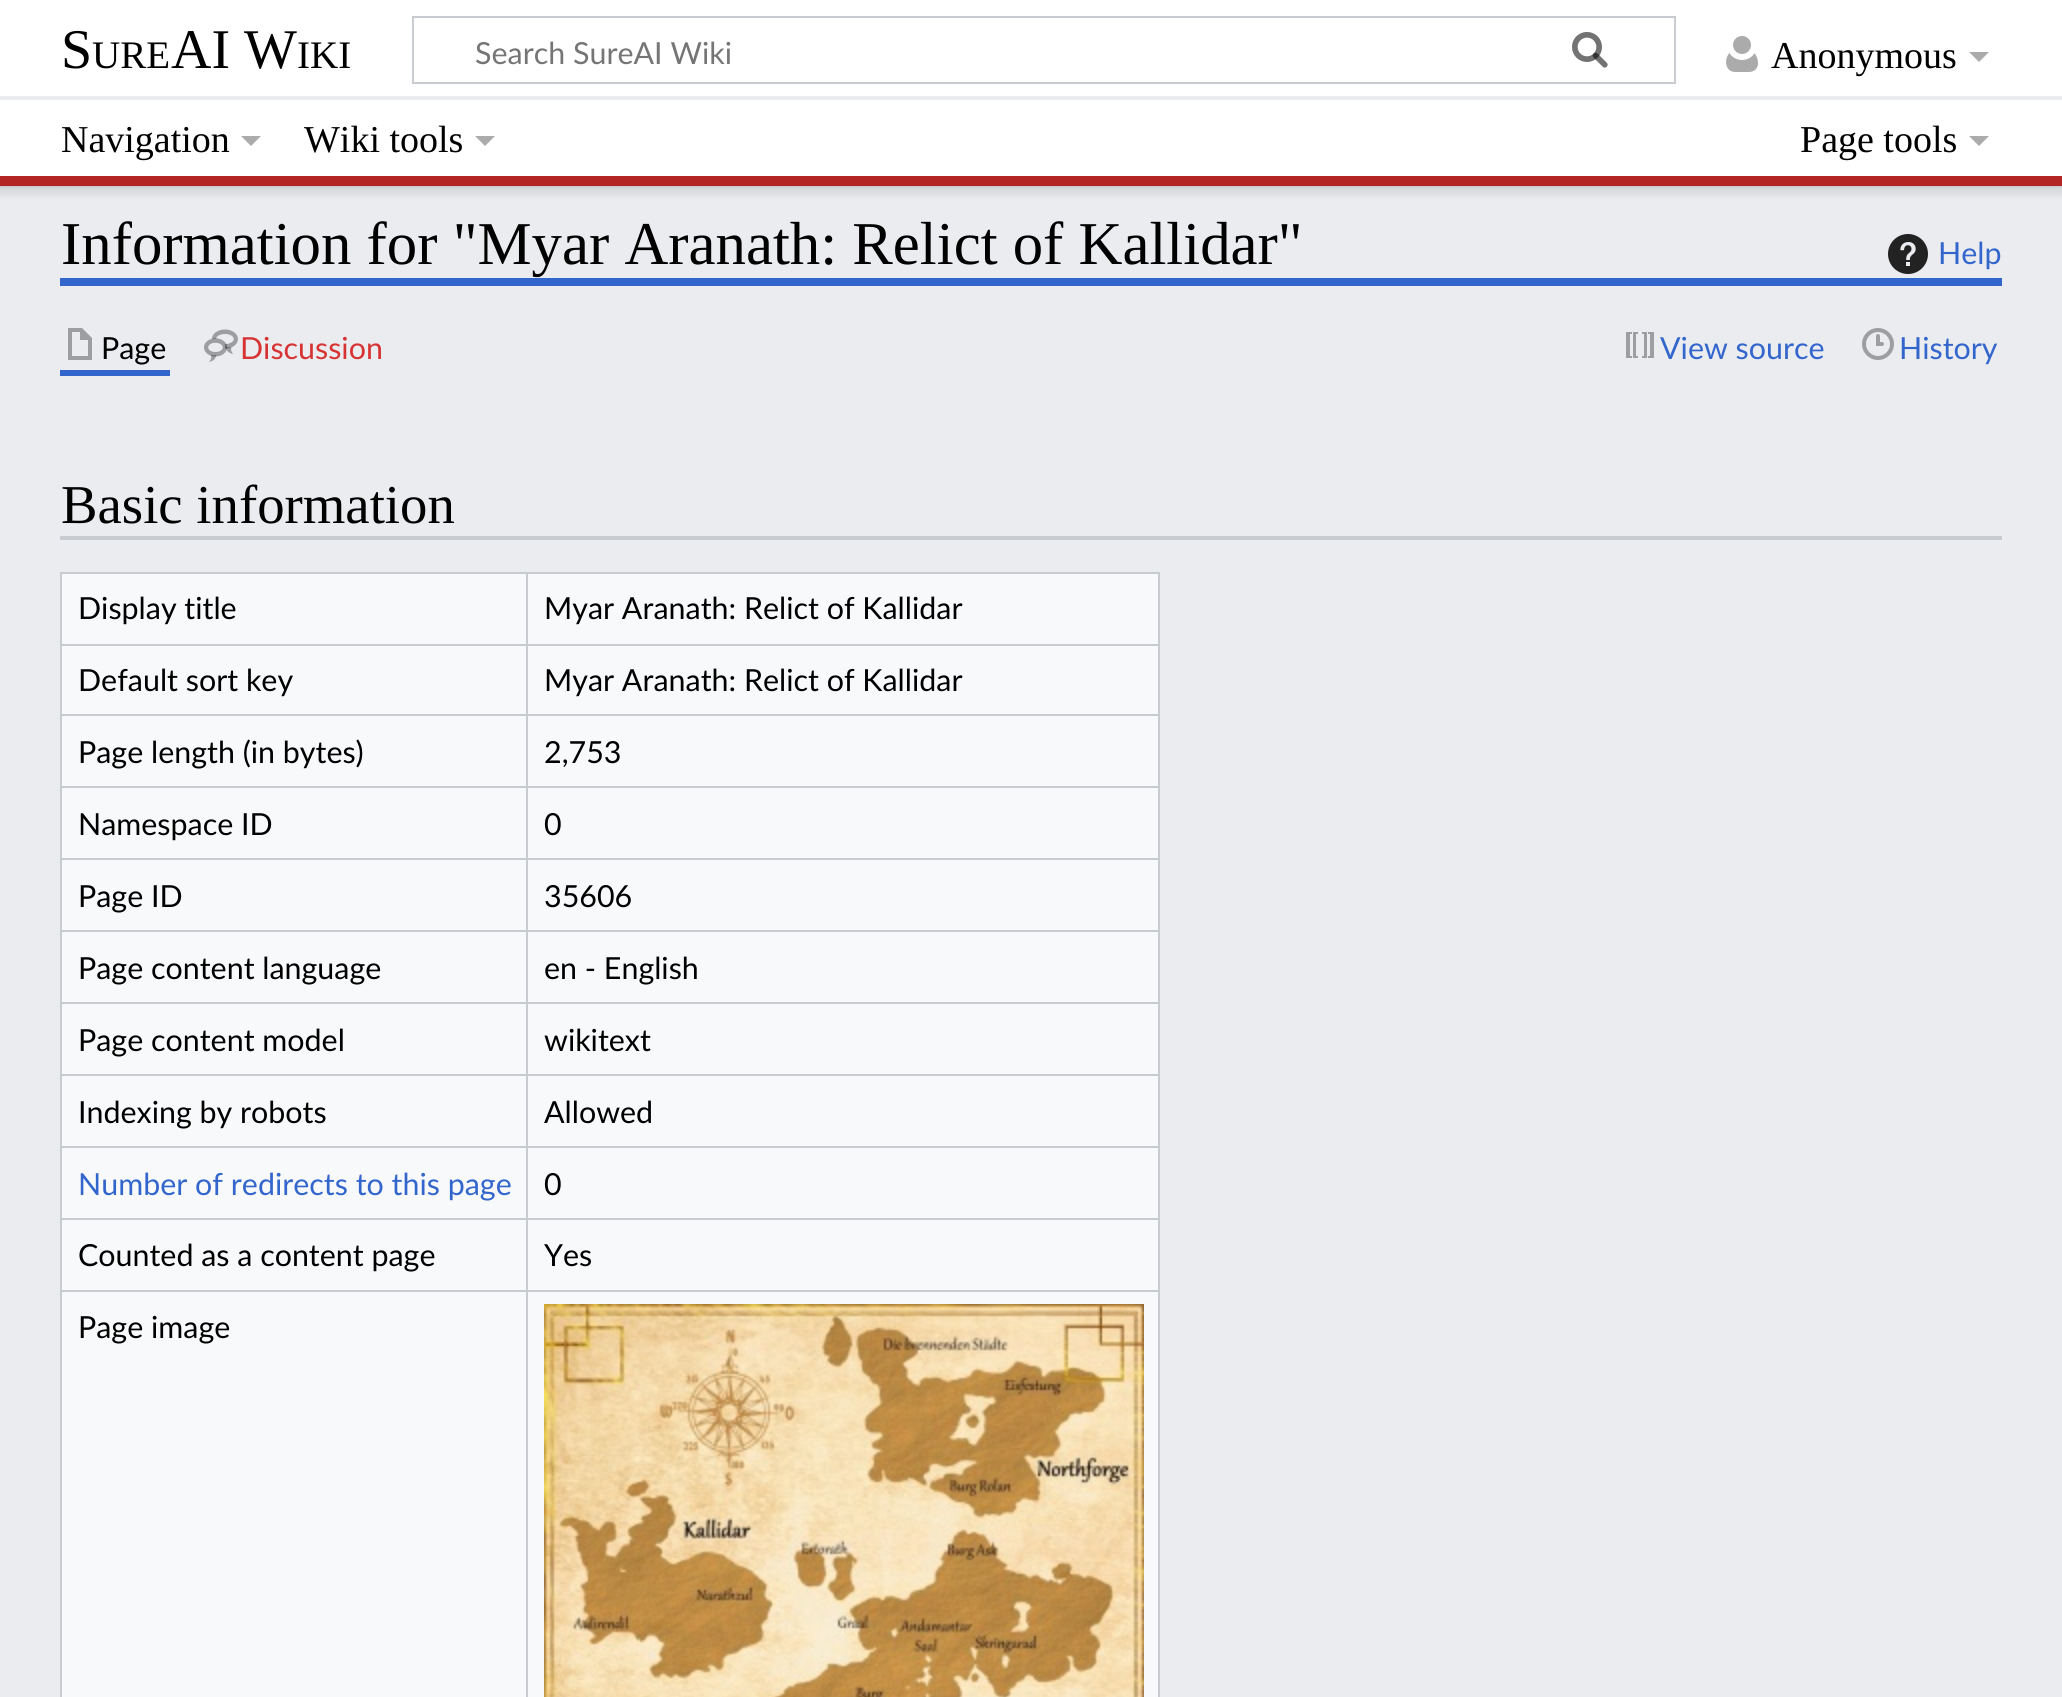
#include <cairo.h>
#include <math.h>
#include <stddef.h>


static void rgb(cairo_t *cr, int r, int g, int b)
{
	cairo_set_source_rgb(cr, r / 255.0, g / 255.0, b / 255.0);
}

static void face(cairo_t *cr, const char *family, double size, int italic, int bold)
{
	cairo_select_font_face(cr, family, italic ? CAIRO_FONT_SLANT_ITALIC : CAIRO_FONT_SLANT_NORMAL,
		bold ? CAIRO_FONT_WEIGHT_BOLD : CAIRO_FONT_WEIGHT_NORMAL);
	cairo_set_font_size(cr, size);
}

static void label(cairo_t *cr, double x, double y, const char *s)
{
	cairo_move_to(cr, x, y);
	cairo_show_text(cr, s);
}

static void rect(cairo_t *cr, double x, double y, double w, double h)
{
	cairo_rectangle(cr, x, y, w, h);
	cairo_fill(cr);
}

static void rrect(cairo_t *cr, double x, double y, double w, double h, double r)
{
	cairo_new_sub_path(cr);
	cairo_arc(cr, x + w - r, y + h - r, r, 0, M_PI / 2);
	cairo_arc(cr, x + r, y + h - r, r, M_PI / 2, M_PI);
	cairo_arc(cr, x + r, y + r, r, M_PI, 1.5 * M_PI);
	cairo_arc(cr, x + w - r, y + r, r, 1.5 * M_PI, 2 * M_PI);
	cairo_close_path(cr);
}

static void soft_shadow(cairo_t *cr, double x, double y, double w, double h, double r, double blur, double alpha)
{
	cairo_push_group_with_content(cr, CAIRO_CONTENT_ALPHA);
	cairo_set_operator(cr, CAIRO_OPERATOR_SOURCE);
	for (int i = 15; i >= -15 && fmin(w, h) + blur * i / 3 > 0; i -= 2) {
		double e = blur * i / 6;
		cairo_set_source_rgba(cr, 0, 0, 0, alpha * erfc((i - 1) / 8.5) / 2);
		rrect(cr, x - e, y - e, w + 2 * e, h + 2 * e, fmax(0, fmin(r + e + blur * .6, fmin(w, h) / 2 + e)));
		cairo_fill(cr);
	}
	cairo_pattern_t *soft = cairo_pop_group(cr);
	cairo_mask(cr, soft);
	cairo_pattern_destroy(soft);
}

static void image(cairo_t *cr, const char *path, double x, double y, double w, double h)
{
	cairo_surface_t *image = cairo_image_surface_create_from_png(path);
	cairo_save(cr);
	cairo_set_source_surface(cr, image, x, y);
	cairo_rectangle(cr, x, y, w, h);
	cairo_fill(cr);
	cairo_restore(cr);
	cairo_surface_destroy(image);
}

static void draw(cairo_t *cr) {
	rgb(cr, 234, 236, 240);
	cairo_paint(cr);
	rgb(cr, 0, 0, 0);
	soft_shadow(cr, 0, 96, 2062, 90, 0, 2, 0.2);
	soft_shadow(cr, -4, 98, 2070, 98, 0, 3, 0.07);
	rgb(cr, 255, 255, 255);
	rect(cr, 0, 0, 2062, 96);
	face(cr, "Liberation Serif", 56, 0, 0);
	rgb(cr, 0, 0, 0);
	label(cr, 61, 68, "S");
	face(cr, "Liberation Serif", 39, 0, 0);
	label(cr, 92, 68, "URE");
	face(cr, "Liberation Serif", 56, 0, 0);
	label(cr, 171, 68, "AI W");
	face(cr, "Liberation Serif", 39, 0, 0);
	label(cr, 297, 68, "IKI");
	cairo_rectangle(cr, 413, 17, 1262, 66);
	rgb(cr, 200, 204, 209);
	cairo_stroke(cr);
	image(cr, "image0.png", 1572, 32, 36, 36);
	face(cr, "Lato", 30.4, 0, 0);
	rgb(cr, 117, 117, 117);
	label(cr, 475, 64, "Search SureAI Wiki");
	image(cr, "image1.png", 1572, 32, 36, 36);
	image(cr, "image2.png", 1726, 36, 32, 36);
	face(cr, "Liberation Serif", 38, 0, 0);
	rgb(cr, 0, 0, 0);
	label(cr, 1771, 68, "Anonymous");
	rgb(cr, 171, 171, 171);
	cairo_new_path(cr);
	cairo_move_to(cr, 1989, 52);
	cairo_line_to(cr, 1979, 62);
	cairo_line_to(cr, 1969, 52);
	cairo_close_path(cr);
	cairo_fill(cr);
	rgb(cr, 255, 255, 255);
	rect(cr, 0, 100, 2062, 76);
	rgb(cr, 234, 236, 240);
	rect(cr, 0, 96, 2062, 4);
	rgb(cr, 179, 36, 36);
	rect(cr, 0, 176, 2062, 10);
	rgb(cr, 0, 0, 0);
	label(cr, 61, 152, "Navigation");
	rgb(cr, 171, 171, 171);
	cairo_new_path(cr);
	cairo_move_to(cr, 261, 136);
	cairo_line_to(cr, 251, 146);
	cairo_line_to(cr, 241, 136);
	cairo_close_path(cr);
	cairo_fill(cr);
	rgb(cr, 0, 0, 0);
	label(cr, 304, 152, "Wiki tools");
	rgb(cr, 171, 171, 171);
	cairo_new_path(cr);
	cairo_move_to(cr, 495, 136);
	cairo_line_to(cr, 485, 146);
	cairo_line_to(cr, 475, 136);
	cairo_close_path(cr);
	cairo_fill(cr);
	rgb(cr, 0, 0, 0);
	label(cr, 1800, 152, "Page tools");
	rgb(cr, 171, 171, 171);
	cairo_new_path(cr);
	cairo_move_to(cr, 1989, 136);
	cairo_line_to(cr, 1979, 146);
	cairo_line_to(cr, 1969, 136);
	cairo_close_path(cr);
	cairo_fill(cr);
	rgb(cr, 51, 102, 204);
	rect(cr, 60, 278, 1942, 8);
	face(cr, "Liberation Serif", 60.8, 0, 0);
	rgb(cr, 0, 0, 0);
	label(cr, 61, 264, "Information for \"Myar Aranath: Relict of Kallidar\"");
	image(cr, "image3.png", 1888, 234, 40, 40);
	face(cr, "Lato", 30.4, 0, 0);
	rgb(cr, 51, 102, 204);
	label(cr, 1938, 264, "Help");
	rect(cr, 60, 370, 110, 6);
	rgb(cr, 157, 158, 161);
	cairo_new_path(cr);
	cairo_move_to(cr, 68, 328);
	cairo_line_to(cr, 68, 360);
	cairo_line_to(cr, 92, 360);
	cairo_line_to(cr, 92, 338);
	cairo_line_to(cr, 82, 328);
	cairo_close_path(cr);
	cairo_move_to(cr, 72, 332);
	cairo_line_to(cr, 80, 332);
	cairo_line_to(cr, 80, 340);
	cairo_line_to(cr, 88, 340);
	cairo_line_to(cr, 88, 356);
	cairo_line_to(cr, 72, 356);
	cairo_close_path(cr);
	cairo_fill(cr);
	rgb(cr, 0, 0, 0);
	label(cr, 101, 359, "Page");
	image(cr, "image4.png", 204, 329, 34, 33);
	rgb(cr, 215, 51, 51);
	label(cr, 240, 359, "Discussion");
	image(cr, "image5.png", 1626, 332, 28, 26);
	rgb(cr, 51, 102, 204);
	label(cr, 1660, 359, "View source");
	image(cr, "image6.png", 1862, 328, 32, 32);
	label(cr, 1899, 359, "History");
	rgb(cr, 200, 204, 209);
	rect(cr, 60, 536, 1942, 4);
	face(cr, "Liberation Serif", 54.75, 0, 0);
	rgb(cr, 0, 0, 0);
	label(cr, 61, 523, "Basic information");
	rgb(cr, 248, 249, 250);
	rect(cr, 62, 574, 1096, 1123);
	rgb(cr, 200, 204, 209);
	rect(cr, 60, 572, 1100, 2);
	rect(cr, 1158, 572, 2, 1125);
	rect(cr, 60, 572, 2, 1125);
	face(cr, "Lato", 30.4, 0, 0);
	rgb(cr, 0, 0, 0);
	label(cr, 78, 619, "Display title");
	rgb(cr, 200, 204, 209);
	rect(cr, 526, 644, 634, 2);
	rect(cr, 526, 714, 634, 2);
	rect(cr, 526, 786, 634, 2);
	rect(cr, 526, 858, 634, 2);
	rect(cr, 526, 930, 634, 2);
	rect(cr, 526, 1002, 634, 2);
	rect(cr, 526, 1074, 634, 2);
	rect(cr, 526, 1146, 634, 2);
	rect(cr, 526, 1218, 634, 2);
	rect(cr, 526, 1290, 634, 2);
	rect(cr, 526, 1290, 2, 407);
	rect(cr, 60, 1290, 468, 2);
	rect(cr, 526, 1218, 2, 74);
	rect(cr, 60, 1218, 468, 2);
	rect(cr, 526, 1146, 2, 74);
	rect(cr, 60, 1146, 468, 2);
	rect(cr, 526, 1074, 2, 74);
	rect(cr, 60, 1074, 468, 2);
	rect(cr, 526, 1002, 2, 74);
	rect(cr, 60, 1002, 468, 2);
	rect(cr, 526, 930, 2, 74);
	rect(cr, 60, 930, 468, 2);
	rect(cr, 526, 858, 2, 74);
	rect(cr, 60, 858, 468, 2);
	rect(cr, 526, 786, 2, 74);
	rect(cr, 60, 786, 468, 2);
	rect(cr, 526, 714, 2, 74);
	rect(cr, 60, 714, 468, 2);
	rect(cr, 526, 644, 2, 72);
	rect(cr, 60, 644, 468, 2);
	rect(cr, 526, 572, 2, 74);
	rgb(cr, 0, 0, 0);
	label(cr, 544, 619, "Myar Aranath: Relict of Kallidar");
	label(cr, 78, 691, "Default sort key");
	label(cr, 544, 691, "Myar Aranath: Relict of Kallidar");
	label(cr, 78, 763, "Page length (in bytes)");
	label(cr, 544, 763, "2,753");
	label(cr, 78, 835, "Namespace ID");
	label(cr, 544, 835, "0");
	label(cr, 78, 907, "Page ID");
	label(cr, 544, 907, "35606");
	label(cr, 78, 979, "Page content language");
	label(cr, 544, 979, "en - English");
	label(cr, 78, 1051, "Page content model");
	label(cr, 544, 1051, "wikitext");
	label(cr, 78, 1123, "Indexing by robots");
	label(cr, 544, 1123, "Allowed");
	rgb(cr, 51, 102, 204);
	label(cr, 78, 1195, "Number of redirects to this page");
	rgb(cr, 0, 0, 0);
	label(cr, 544, 1195, "0");
	label(cr, 78, 1266, "Counted as a content page");
	label(cr, 544, 1266, "Yes");
	label(cr, 78, 1338, "Page image");
	image(cr, "image7.png", 544, 1304, 600, 393);
}

int main(void) {
	cairo_surface_t *surface = cairo_image_surface_create(CAIRO_FORMAT_RGB24, 2062, 1697);
	cairo_t *cr = cairo_create(surface);
	cairo_font_options_t *options = cairo_font_options_create();
	cairo_font_options_set_hint_metrics(options, CAIRO_HINT_METRICS_OFF);
	cairo_font_options_set_hint_style(options, CAIRO_HINT_STYLE_NONE);
	cairo_set_font_options(cr, options);
	cairo_set_miter_limit(cr, 4);
	draw(cr);
	cairo_surface_write_to_png(surface, "render.png");
	cairo_font_options_destroy(options);
	cairo_destroy(cr);
	cairo_surface_destroy(surface);
	return 0;
}
